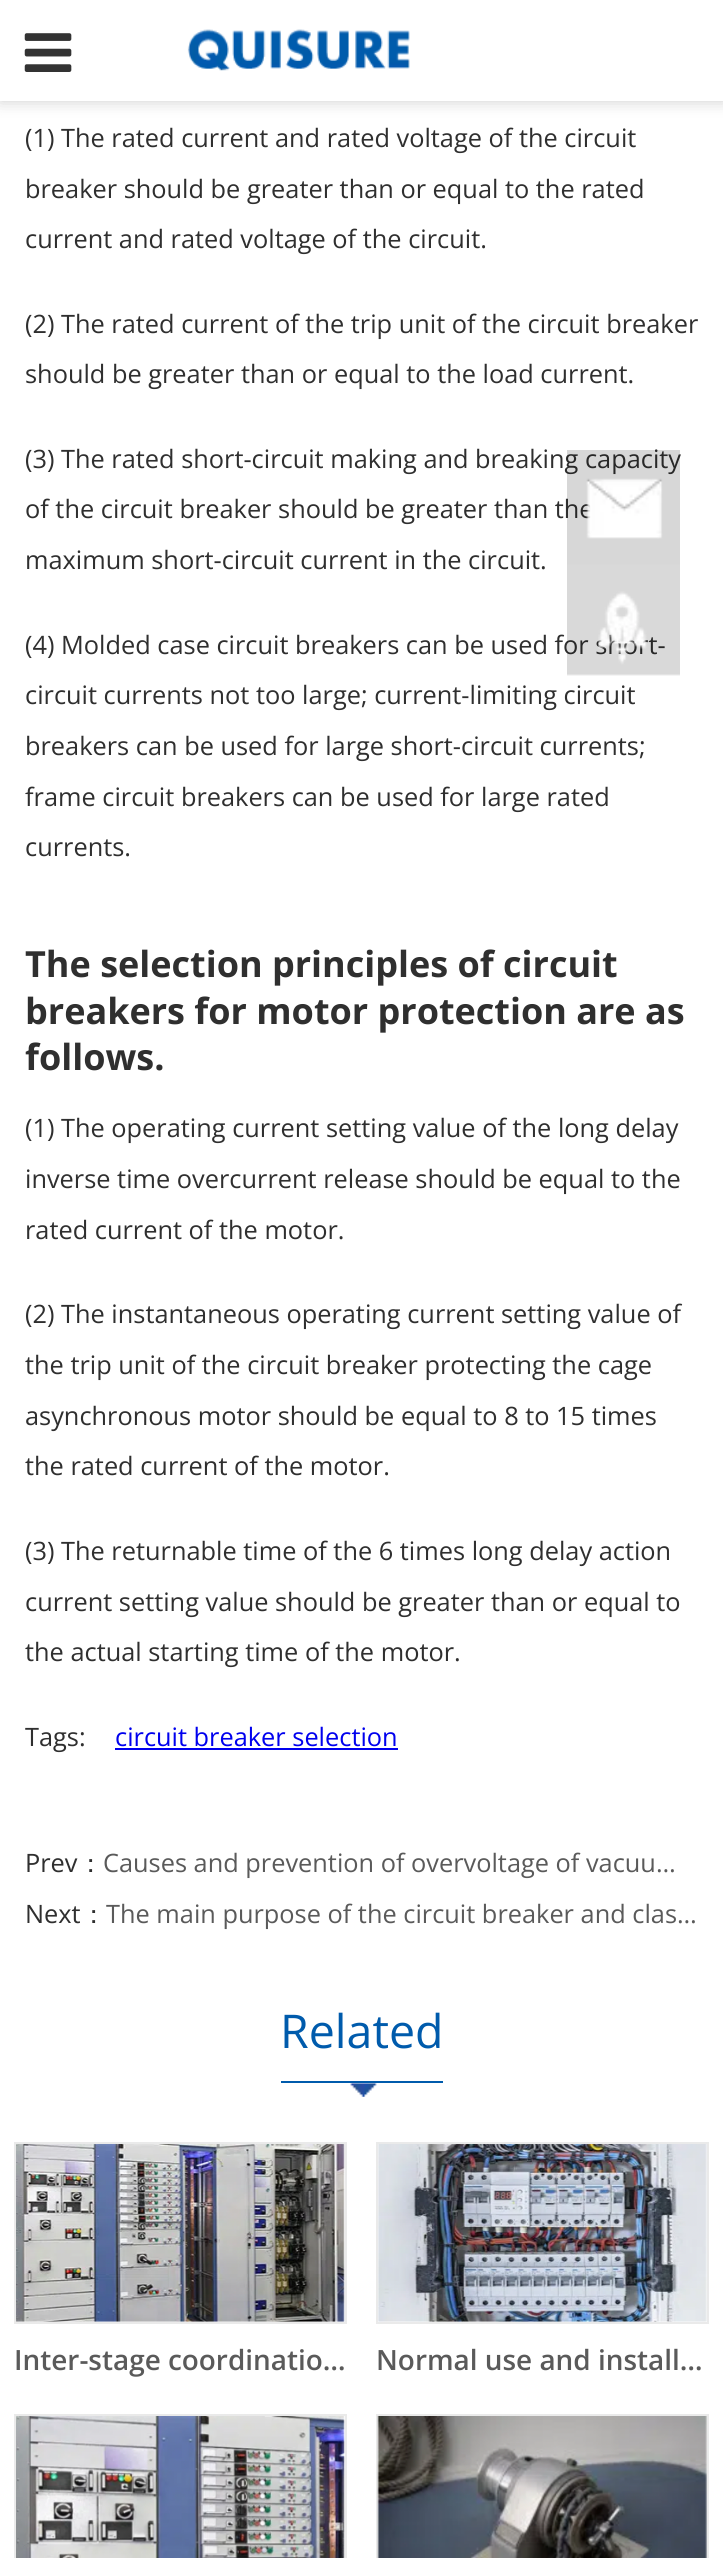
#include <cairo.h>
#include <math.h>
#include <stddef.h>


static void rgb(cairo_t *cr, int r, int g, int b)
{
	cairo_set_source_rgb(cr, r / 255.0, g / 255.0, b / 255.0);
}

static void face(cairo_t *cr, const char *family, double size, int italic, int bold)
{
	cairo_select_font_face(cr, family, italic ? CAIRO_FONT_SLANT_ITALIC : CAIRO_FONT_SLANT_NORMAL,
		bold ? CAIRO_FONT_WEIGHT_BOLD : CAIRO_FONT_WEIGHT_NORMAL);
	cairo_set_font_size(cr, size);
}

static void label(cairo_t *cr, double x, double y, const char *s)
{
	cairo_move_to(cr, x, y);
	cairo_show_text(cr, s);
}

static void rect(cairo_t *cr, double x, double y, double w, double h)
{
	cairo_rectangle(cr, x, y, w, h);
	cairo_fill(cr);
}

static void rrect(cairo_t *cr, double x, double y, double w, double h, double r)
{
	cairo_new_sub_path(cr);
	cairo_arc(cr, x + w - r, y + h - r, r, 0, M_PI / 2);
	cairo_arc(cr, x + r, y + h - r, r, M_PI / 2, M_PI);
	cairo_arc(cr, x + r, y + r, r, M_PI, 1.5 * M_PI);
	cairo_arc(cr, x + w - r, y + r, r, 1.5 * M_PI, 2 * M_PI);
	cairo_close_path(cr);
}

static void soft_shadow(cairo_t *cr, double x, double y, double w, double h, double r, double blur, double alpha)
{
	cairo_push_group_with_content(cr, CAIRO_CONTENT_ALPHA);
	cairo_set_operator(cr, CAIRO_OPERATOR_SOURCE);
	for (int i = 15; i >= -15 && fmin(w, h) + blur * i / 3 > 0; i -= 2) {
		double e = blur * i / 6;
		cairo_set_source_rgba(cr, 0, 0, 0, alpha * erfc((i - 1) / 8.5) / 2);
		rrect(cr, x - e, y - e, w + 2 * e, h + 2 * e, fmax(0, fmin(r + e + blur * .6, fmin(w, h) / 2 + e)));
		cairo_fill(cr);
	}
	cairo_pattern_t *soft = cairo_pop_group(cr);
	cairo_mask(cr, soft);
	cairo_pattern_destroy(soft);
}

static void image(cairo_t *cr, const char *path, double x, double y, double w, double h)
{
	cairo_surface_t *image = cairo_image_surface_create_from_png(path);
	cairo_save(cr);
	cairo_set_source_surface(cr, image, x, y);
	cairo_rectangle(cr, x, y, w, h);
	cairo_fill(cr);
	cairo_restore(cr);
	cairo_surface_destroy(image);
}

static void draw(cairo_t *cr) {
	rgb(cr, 255, 255, 255);
	cairo_paint(cr);
	rgb(cr, 0, 0, 0);
	soft_shadow(cr, 0, 0, 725, 101, 0, 8, 0.2);
	rgb(cr, 255, 255, 255);
	rect(cr, 0, 0, 723, 101);
	image(cr, "image0.png", 24, 33, 48, 39);
	image(cr, "image1.png", 187, 29, 223, 42);
	face(cr, "Open Sans", 25.35, 0, 0);
	rgb(cr, 47, 47, 47);
	label(cr, 25, 147, "(1) The rated current and rated voltage of the circuit");
	label(cr, 25, 198, "breaker should be greater than or equal to the rated");
	label(cr, 25, 248, "current and rated voltage of the circuit.");
	label(cr, 25, 333, "(2) The rated current of the trip unit of the circuit breaker");
	label(cr, 25, 383, "should be greater than or equal to the load current.");
	label(cr, 25, 468, "(3) The rated short-circuit making and breaking capacity");
	label(cr, 25, 518, "of the circuit breaker should be greater than the");
	label(cr, 25, 569, "maximum short-circuit current in the circuit.");
	label(cr, 25, 654, "(4) Molded case circuit breakers can be used for short-");
	label(cr, 25, 704, "circuit currents not too large; current-limiting circuit");
	label(cr, 25, 755, "breakers can be used for large short-circuit currents;");
	label(cr, 25, 806, "frame circuit breakers can be used for large rated");
	label(cr, 25, 856, "currents.");
	face(cr, "Open Sans", 36, 0, 1);
	label(cr, 25, 977, "The selection principles of circuit");
	label(cr, 25, 1024, "breakers for motor protection are as");
	label(cr, 25, 1070, "follows.");
	face(cr, "Open Sans", 25.35, 0, 0);
	label(cr, 25, 1137, "(1) The operating current setting value of the long delay");
	label(cr, 25, 1188, "inverse time overcurrent release should be equal to the");
	label(cr, 25, 1239, "rated current of the motor.");
	label(cr, 25, 1323, "(2) The instantaneous operating current setting value of");
	label(cr, 25, 1374, "the trip unit of the circuit breaker protecting the cage");
	label(cr, 25, 1425, "asynchronous motor should be equal to 8 to 15 times");
	label(cr, 25, 1475, "the rated current of the motor.");
	label(cr, 25, 1560, "(3) The returnable time of the 6 times long delay action");
	label(cr, 25, 1611, "current setting value should be greater than or equal to");
	label(cr, 25, 1661, "the actual starting time of the motor.");
	label(cr, 25, 1746, "Tags:");
	rgb(cr, 0, 0, 238);
	label(cr, 115, 1746, "circuit breaker selection");
	rect(cr, 115, 1748, 283, 2);
	rgb(cr, 47, 47, 47);
	label(cr, 25, 1872, "Prev");
	face(cr, "WenQuanYi Zen Hei Medium", 25.35, 0, 0);
	label(cr, 78, 1872, "：");
	face(cr, "Open Sans", 25.35, 0, 0);
	rgb(cr, 90, 90, 90);
	label(cr, 103, 1872, "Causes and prevention of overvoltage of vacuu…");
	rgb(cr, 47, 47, 47);
	label(cr, 25, 1923, "Next");
	face(cr, "WenQuanYi Zen Hei Medium", 25.35, 0, 0);
	label(cr, 81, 1923, "：");
	face(cr, "Open Sans", 25.35, 0, 0);
	rgb(cr, 90, 90, 90);
	label(cr, 106, 1923, "The main purpose of the circuit breaker and clas…");
	image(cr, "image2.png", 350, 2083, 27, 14);
	rgb(cr, 0, 91, 172);
	rect(cr, 281, 2081, 162, 2);
	face(cr, "Open Sans", 46.5, 0, 0);
	label(cr, 280, 2048, "Related");
	cairo_rectangle(cr, 15, 2143, 331, 180);
	rgb(cr, 234, 234, 234);
	cairo_stroke(cr);
	image(cr, "image3.png", 16, 2144, 329, 178);
	face(cr, "Open Sans SemiBold", 27.9, 0, 0);
	rgb(cr, 90, 90, 90);
	label(cr, 14, 2370, "Inter-stage coordinatio…");
	cairo_rectangle(cr, 377, 2143, 331, 180);
	rgb(cr, 234, 234, 234);
	cairo_stroke(cr);
	image(cr, "image4.png", 378, 2144, 329, 178);
	rgb(cr, 90, 90, 90);
	label(cr, 376, 2370, "Normal use and install…");
	cairo_rectangle(cr, 15, 2415, 331, 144);
	rgb(cr, 234, 234, 234);
	cairo_stroke(cr);
	image(cr, "image5.png", 16, 2416, 329, 142);
	cairo_rectangle(cr, 377, 2415, 331, 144);
	cairo_stroke(cr);
	image(cr, "image6.png", 377, 2416, 330, 142);
	image(cr, "image7.png", 567, 450, 113, 226);
}

int main(void) {
	cairo_surface_t *surface = cairo_image_surface_create(CAIRO_FORMAT_RGB24, 723, 2558);
	cairo_t *cr = cairo_create(surface);
	cairo_font_options_t *options = cairo_font_options_create();
	cairo_font_options_set_hint_metrics(options, CAIRO_HINT_METRICS_OFF);
	cairo_font_options_set_hint_style(options, CAIRO_HINT_STYLE_NONE);
	cairo_set_font_options(cr, options);
	cairo_set_miter_limit(cr, 4);
	draw(cr);
	cairo_surface_write_to_png(surface, "render.png");
	cairo_font_options_destroy(options);
	cairo_destroy(cr);
	cairo_surface_destroy(surface);
	return 0;
}
